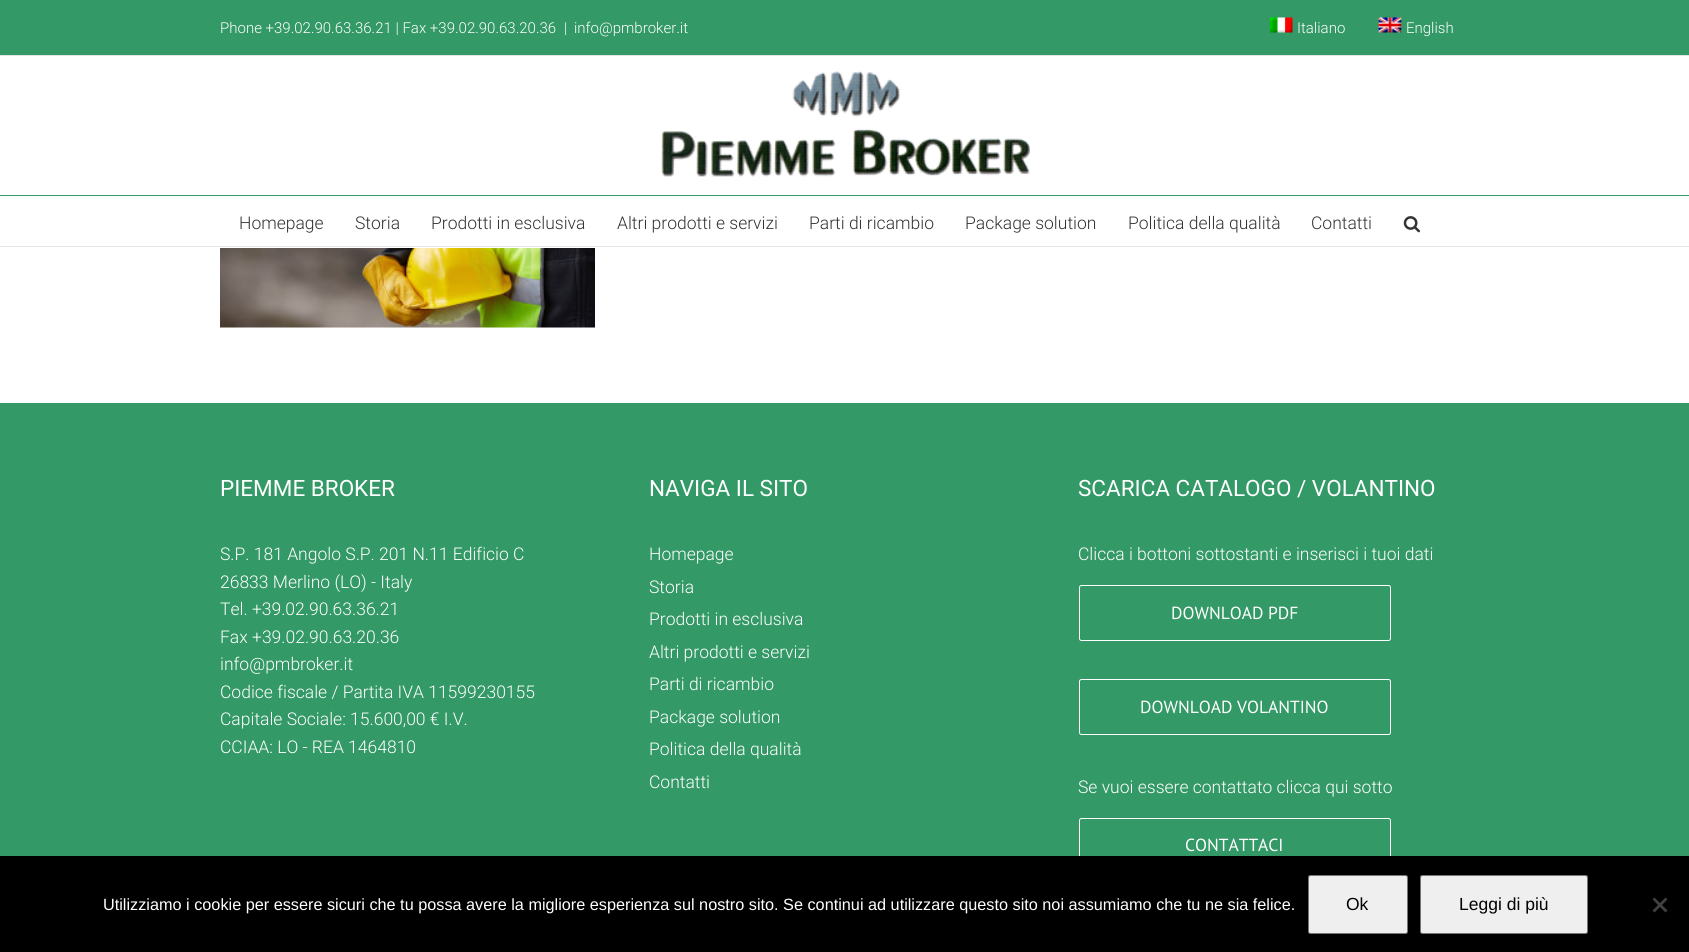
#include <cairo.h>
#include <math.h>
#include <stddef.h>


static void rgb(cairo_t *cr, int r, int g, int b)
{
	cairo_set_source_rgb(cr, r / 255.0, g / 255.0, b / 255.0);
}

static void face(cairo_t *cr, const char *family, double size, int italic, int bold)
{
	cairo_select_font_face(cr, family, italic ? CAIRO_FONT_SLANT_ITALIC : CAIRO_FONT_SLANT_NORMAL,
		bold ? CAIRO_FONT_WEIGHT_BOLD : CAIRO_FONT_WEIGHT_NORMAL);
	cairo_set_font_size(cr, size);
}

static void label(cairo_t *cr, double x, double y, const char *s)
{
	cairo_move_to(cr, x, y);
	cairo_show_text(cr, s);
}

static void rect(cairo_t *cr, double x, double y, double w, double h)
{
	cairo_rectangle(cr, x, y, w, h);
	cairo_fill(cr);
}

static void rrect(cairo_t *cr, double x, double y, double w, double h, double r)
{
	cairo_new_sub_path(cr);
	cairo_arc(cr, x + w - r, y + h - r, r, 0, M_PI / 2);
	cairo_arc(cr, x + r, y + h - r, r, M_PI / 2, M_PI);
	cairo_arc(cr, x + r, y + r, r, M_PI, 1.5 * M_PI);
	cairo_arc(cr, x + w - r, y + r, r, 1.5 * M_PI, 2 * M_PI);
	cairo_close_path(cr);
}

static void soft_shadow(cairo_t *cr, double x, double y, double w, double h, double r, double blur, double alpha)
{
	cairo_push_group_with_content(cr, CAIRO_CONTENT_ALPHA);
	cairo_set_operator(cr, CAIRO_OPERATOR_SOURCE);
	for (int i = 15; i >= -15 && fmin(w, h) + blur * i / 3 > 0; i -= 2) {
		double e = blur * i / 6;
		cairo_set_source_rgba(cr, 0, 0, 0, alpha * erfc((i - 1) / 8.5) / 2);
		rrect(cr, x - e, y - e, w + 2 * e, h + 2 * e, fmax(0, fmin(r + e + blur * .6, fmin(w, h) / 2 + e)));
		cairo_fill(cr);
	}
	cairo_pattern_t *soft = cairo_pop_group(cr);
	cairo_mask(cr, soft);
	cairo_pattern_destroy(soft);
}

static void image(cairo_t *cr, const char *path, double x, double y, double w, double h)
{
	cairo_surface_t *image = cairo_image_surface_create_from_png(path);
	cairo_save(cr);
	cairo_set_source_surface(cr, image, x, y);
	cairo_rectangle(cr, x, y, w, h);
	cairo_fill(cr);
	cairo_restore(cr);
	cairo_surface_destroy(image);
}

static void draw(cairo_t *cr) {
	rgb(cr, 255, 255, 255);
	cairo_paint(cr);
	rgb(cr, 51, 153, 102);
	rect(cr, 0, 0, 1689, 55);
	rgb(cr, 229, 229, 229);
	rect(cr, 0, 55, 1689, 1);
	face(cr, "Roboto Light", 15, 0, 0);
	rgb(cr, 255, 255, 255);
	label(cr, 220, 33, "Phone +39.02.90.63.36.21 | Fax +39.02.90.63.20.36");
	label(cr, 564, 33, "|");
	label(cr, 574, 33, "info@pmbroker.it");
	image(cr, "image0.png", 1270, 17, 23, 16);
	label(cr, 1297, 33, "Italiano");
	image(cr, "image1.png", 1378, 17, 24, 16);
	label(cr, 1406, 33, "English");
	rgb(cr, 51, 153, 102);
	rect(cr, 0, 195, 1689, 1);
	image(cr, "image2.png", 661, 71, 369, 106);
	rgb(cr, 229, 229, 229);
	rect(cr, 0, 246, 1689, 1);
	face(cr, "Roboto Light", 17.5, 0, 0);
	rgb(cr, 51, 51, 51);
	label(cr, 239, 229, "Homepage");
	label(cr, 355, 229, "Storia");
	label(cr, 431, 229, "Prodotti in esclusiva");
	label(cr, 617, 229, "Altri prodotti e servizi");
	label(cr, 809, 229, "Parti di ricambio");
	label(cr, 965, 229, "Package solution");
	label(cr, 1128, 229, "Politica della qualità");
	label(cr, 1311, 229, "Contatti");
	image(cr, "image3.png", 1403, 216, 17, 17);
	image(cr, "image4.png", 220, 248, 375, 80);
	rgb(cr, 51, 153, 102);
	rect(cr, 0, 403, 1689, 453);
	face(cr, "Roboto", 22.5, 0, 0);
	rgb(cr, 255, 255, 255);
	label(cr, 220, 496, "PIEMME BROKER");
	face(cr, "Roboto Light", 17.5, 0, 0);
	label(cr, 220, 560, "S.P. 181 Angolo S.P. 201 N.11 Edificio C");
	label(cr, 220, 588, "26833 Merlino (LO) - Italy");
	label(cr, 220, 615, "Tel. +39.02.90.63.36.21");
	label(cr, 220, 643, "Fax +39.02.90.63.20.36");
	label(cr, 220, 670, "info@pmbroker.it");
	label(cr, 220, 698, "Codice fiscale / Partita IVA 11599230155");
	label(cr, 220, 725, "Capitale Sociale: 15.600,00 € I.V.");
	label(cr, 220, 753, "CCIAA: LO - REA 1464810");
	face(cr, "Roboto", 22.5, 0, 0);
	label(cr, 649, 496, "NAVIGA IL SITO");
	face(cr, "Roboto Light", 17.5, 0, 0);
	label(cr, 649, 560, "Homepage");
	label(cr, 649, 593, "Storia");
	label(cr, 649, 625, "Prodotti in esclusiva");
	label(cr, 649, 658, "Altri prodotti e servizi");
	label(cr, 649, 690, "Parti di ricambio");
	label(cr, 649, 723, "Package solution");
	label(cr, 649, 755, "Politica della qualità");
	label(cr, 649, 788, "Contatti");
	face(cr, "Roboto", 22.5, 0, 0);
	label(cr, 1078, 496, "SCARICA CATALOGO / VOLANTINO");
	face(cr, "Roboto Light", 17.5, 0, 0);
	label(cr, 1078, 560, "Clicca i bottoni sottostanti e inserisci i tuoi dati");
	rrect(cr, 1079.5, 585.5, 311, 55, 2);
	cairo_set_line_width(cr, 1);
	cairo_stroke(cr);
	face(cr, "PT Sans", 17.5, 0, 0);
	label(cr, 1171, 619, "DOWNLOAD PDF");
	rrect(cr, 1079.5, 679.5, 311, 55, 2);
	cairo_stroke(cr);
	label(cr, 1140, 713, "DOWNLOAD VOLANTINO");
	face(cr, "Roboto Light", 17.5, 0, 0);
	label(cr, 1078, 793, "Se vuoi essere contattato clicca qui sotto");
	rrect(cr, 1079.5, 818.5, 311, 55, 2);
	cairo_stroke(cr);
	face(cr, "PT Sans", 17.5, 0, 0);
	label(cr, 1185, 851, "CONTATTACI");
	rgb(cr, 128, 128, 128);
	soft_shadow(cr, 1603, 860, 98, 75, 2.5, 3, 1);
	rgb(cr, 0, 0, 0);
	rect(cr, 0, 856, 1689, 96);
	face(cr, "Liberation Sans", 16.25, 0, 0);
	rgb(cr, 255, 255, 255);
	label(cr, 103, 910, "Utilizziamo i cookie per essere sicuri che tu possa avere la migliore esperienza sul nostro sito. Se continui ad utilizzare questo sito noi assumiamo che tu ne sia felice.");
	rgb(cr, 239, 239, 239);
	rrect(cr, 1308.5, 875.5, 99, 58, 2);
	cairo_fill_preserve(cr);
	rgb(cr, 118, 118, 118);
	cairo_stroke(cr);
	face(cr, "Liberation Sans", 17.5, 0, 0);
	rgb(cr, 0, 0, 0);
	label(cr, 1346, 910, "Ok");
	rgb(cr, 239, 239, 239);
	rrect(cr, 1420.5, 875.5, 167, 58, 2);
	cairo_fill_preserve(cr);
	rgb(cr, 118, 118, 118);
	cairo_stroke(cr);
	rgb(cr, 0, 0, 0);
	label(cr, 1459, 910, "Leggi di più");
	rgb(cr, 64, 64, 64);
	cairo_new_path(cr);
	cairo_move_to(cr, 1665.5, 897.5);
	cairo_line_to(cr, 1667.5, 899.5);
	cairo_line_to(cr, 1654.5, 912.5);
	cairo_line_to(cr, 1652.5, 910.5);
	cairo_close_path(cr);
	cairo_fill(cr);
	cairo_new_path(cr);
	cairo_move_to(cr, 1652.5, 899.5);
	cairo_line_to(cr, 1654.5, 897.5);
	cairo_line_to(cr, 1667.5, 910.5);
	cairo_line_to(cr, 1665.5, 912.5);
	cairo_close_path(cr);
	cairo_fill(cr);
}

int main(void) {
	cairo_surface_t *surface = cairo_image_surface_create(CAIRO_FORMAT_RGB24, 1689, 952);
	cairo_t *cr = cairo_create(surface);
	cairo_font_options_t *options = cairo_font_options_create();
	cairo_font_options_set_hint_metrics(options, CAIRO_HINT_METRICS_OFF);
	cairo_font_options_set_hint_style(options, CAIRO_HINT_STYLE_NONE);
	cairo_set_font_options(cr, options);
	cairo_set_miter_limit(cr, 4);
	draw(cr);
	cairo_surface_write_to_png(surface, "render.png");
	cairo_font_options_destroy(options);
	cairo_destroy(cr);
	cairo_surface_destroy(surface);
	return 0;
}
